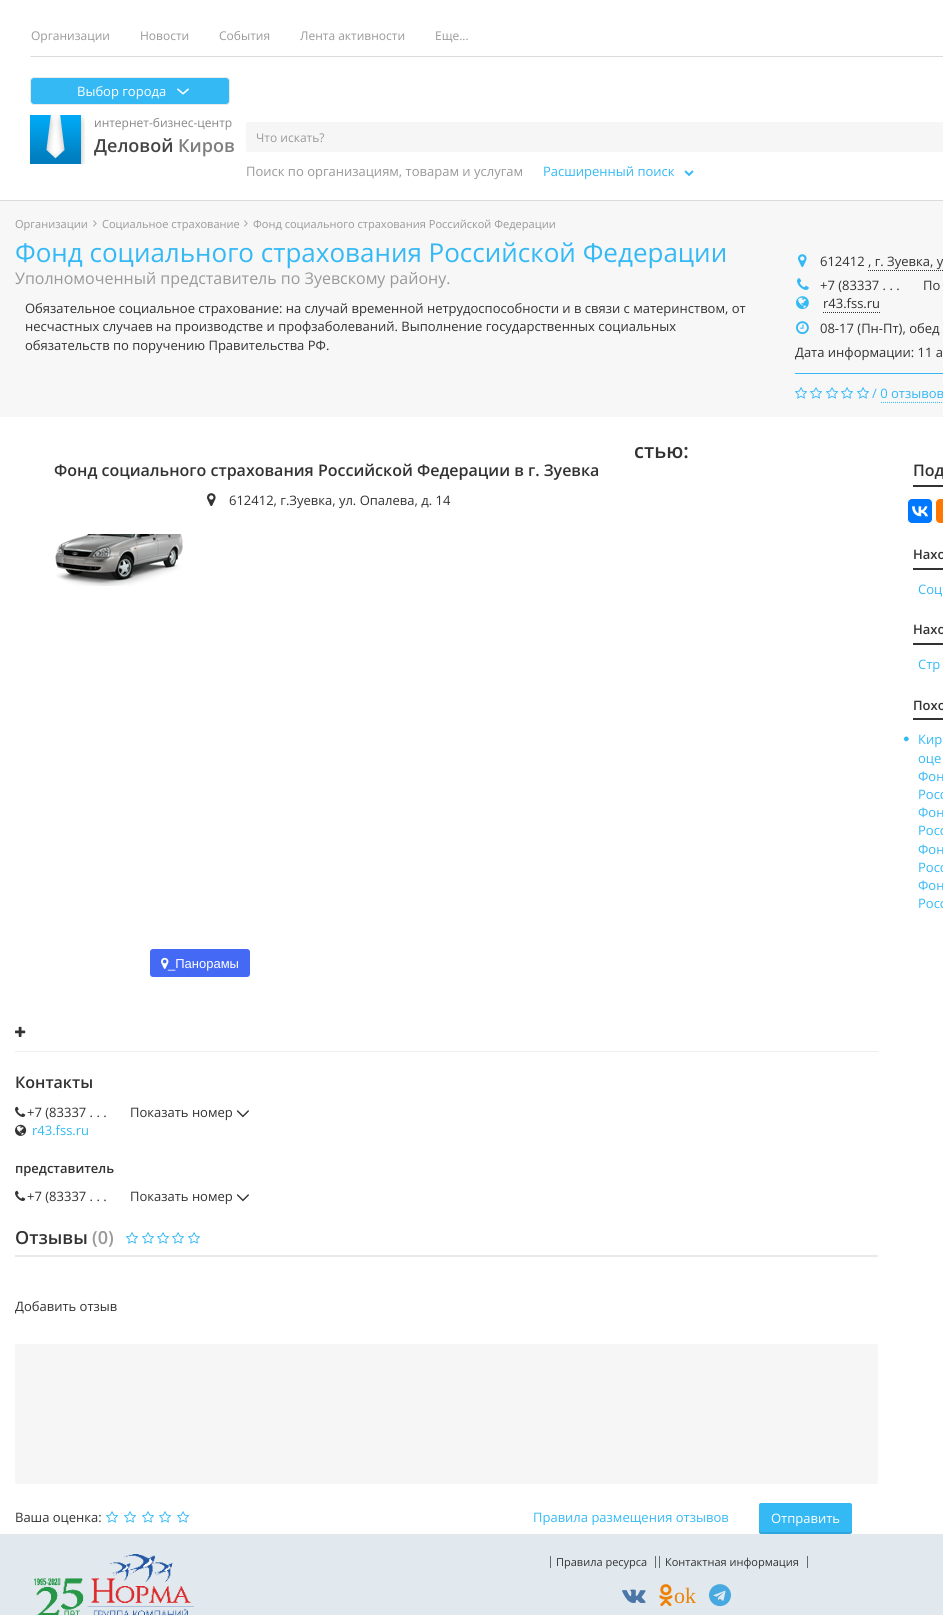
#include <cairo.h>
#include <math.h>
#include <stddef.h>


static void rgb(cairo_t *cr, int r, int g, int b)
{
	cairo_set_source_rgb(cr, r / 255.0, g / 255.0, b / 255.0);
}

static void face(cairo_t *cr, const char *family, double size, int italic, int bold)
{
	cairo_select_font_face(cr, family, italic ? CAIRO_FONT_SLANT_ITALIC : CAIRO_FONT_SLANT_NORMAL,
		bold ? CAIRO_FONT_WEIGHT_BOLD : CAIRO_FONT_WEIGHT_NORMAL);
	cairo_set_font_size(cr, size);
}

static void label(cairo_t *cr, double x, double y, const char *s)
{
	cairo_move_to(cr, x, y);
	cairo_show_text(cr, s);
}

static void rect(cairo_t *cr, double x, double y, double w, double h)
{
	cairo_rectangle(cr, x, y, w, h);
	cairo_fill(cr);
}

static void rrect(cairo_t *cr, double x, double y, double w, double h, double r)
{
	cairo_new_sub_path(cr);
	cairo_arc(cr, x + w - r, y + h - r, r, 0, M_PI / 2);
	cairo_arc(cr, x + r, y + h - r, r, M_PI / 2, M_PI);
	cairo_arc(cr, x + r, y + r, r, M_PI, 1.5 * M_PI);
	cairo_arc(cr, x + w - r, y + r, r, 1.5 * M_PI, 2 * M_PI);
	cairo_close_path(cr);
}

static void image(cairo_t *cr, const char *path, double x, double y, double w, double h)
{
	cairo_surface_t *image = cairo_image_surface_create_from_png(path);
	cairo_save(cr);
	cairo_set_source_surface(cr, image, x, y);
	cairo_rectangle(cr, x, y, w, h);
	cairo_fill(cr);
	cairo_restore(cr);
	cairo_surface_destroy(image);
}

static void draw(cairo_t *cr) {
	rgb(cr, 255, 255, 255);
	cairo_paint(cr);
	rgb(cr, 220, 219, 216);
	rect(cr, 0, 200, 943, 1);
	cairo_new_path(cr);
	cairo_move_to(cr, 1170, 57);
	cairo_line_to(cr, 30, 57);
	cairo_line_to(cr, 31, 56);
	cairo_line_to(cr, 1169, 56);
	cairo_close_path(cr);
	cairo_fill(cr);
	face(cr, "Open Sans", 12, 0, 0);
	rgb(cr, 153, 153, 153);
	label(cr, 31, 40, "Организации");
	label(cr, 140, 40, "Новости");
	label(cr, 219, 40, "События");
	label(cr, 300, 40, "Лента активности");
	label(cr, 435, 40, "Еще...");
	rgb(cr, 52, 185, 245);
	rrect(cr, 30.5, 77.5, 199, 27, 3.5);
	cairo_fill_preserve(cr);
	rgb(cr, 234, 234, 234);
	cairo_set_line_width(cr, 1);
	cairo_stroke(cr);
	face(cr, "Open Sans", 13, 0, 0);
	rgb(cr, 255, 255, 255);
	label(cr, 77, 96, "Выбор города");
	image(cr, "image0.png", 177, 88, 12, 7);
	image(cr, "image1.png", 30, 115, 55, 49);
	face(cr, "Open Sans", 12, 0, 0);
	rgb(cr, 135, 135, 135);
	label(cr, 94, 127, "интернет-бизнес-центр");
	face(cr, "Open Sans SemiBold", 18, 0, 0);
	rgb(cr, 68, 68, 68);
	label(cr, 94, 152, "Деловой");
	rgb(cr, 126, 126, 126);
	label(cr, 178, 152, "Киров");
	rgb(cr, 246, 246, 246);
	rrect(cr, 246, 122, 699, 30, 2);
	cairo_fill(cr);
	face(cr, "Open Sans", 12, 0, 0);
	rgb(cr, 153, 153, 153);
	label(cr, 256, 142, "Что искать?");
	face(cr, "Open Sans", 13, 0, 0);
	label(cr, 246, 176, "Поиск по организациям, товарам и услугам");
	rgb(cr, 52, 185, 245);
	label(cr, 543, 176, "Расширенный поиск");
	image(cr, "image2.png", 684, 170, 10, 7);
	rgb(cr, 247, 247, 247);
	rect(cr, 0, 201, 943, 216);
	face(cr, "Open Sans", 11.05, 0, 0);
	rgb(cr, 153, 153, 153);
	label(cr, 15, 228, "Организации");
	image(cr, "image3.png", 93, 220, 4, 7);
	label(cr, 102, 228, "Социальное страхование");
	image(cr, "image3.png", 244, 220, 4, 7);
	label(cr, 253, 228, "Фонд социального страхования Российской Федерации");
	face(cr, "Open Sans", 26, 0, 0);
	rgb(cr, 52, 185, 245);
	label(cr, 15, 262, "Фонд социального страхования Российской Федерации");
	face(cr, "Open Sans", 16, 0, 0);
	rgb(cr, 153, 153, 153);
	label(cr, 15, 284, "Уполномоченный представитель по Зуевскому району.");
	face(cr, "Open Sans", 13, 0, 0);
	rgb(cr, 50, 50, 50);
	label(cr, 25, 313, "Обязательное социальное страхование: на случай временной нетрудоспособности и в связи с материнством, от");
	label(cr, 25, 331, "несчастных случаев на производстве и профзаболеваний. Выполнение государственных социальных");
	label(cr, 25, 350, "обязательств по поручению Правительства РФ.");
	image(cr, "image4.png", 798, 254, 9, 13);
	label(cr, 820, 266, "612412 , г. Зуевка, у");
	cairo_new_path(cr);
	cairo_move_to(cr, 868, 270.5);
	cairo_line_to(cr, 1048, 270.5);
	cairo_set_dash(cr, (double[]){1, 1}, 2, 0);
	cairo_stroke(cr);
	image(cr, "image5.png", 797, 278, 12, 12);
	label(cr, 820, 290, "+7 (83337 . . .");
	label(cr, 923, 290, "По");
	image(cr, "image6.png", 796, 296, 13, 14);
	label(cr, 823, 308, "r43.fss.ru");
	cairo_new_path(cr);
	cairo_move_to(cr, 823, 312.5);
	cairo_line_to(cr, 880, 312.5);
	cairo_stroke(cr);
	image(cr, "image7.png", 796, 321, 13, 14);
	label(cr, 820, 333, "08-17 (Пн-Пт), обед");
	label(cr, 795, 357, "Дата информации: 11 а");
	rgb(cr, 52, 185, 245);
	rect(cr, 795, 373, 148, 1);
	image(cr, "image8.png", 795, 387, 12, 12);
	image(cr, "image8.png", 810, 387, 12, 12);
	image(cr, "image8.png", 826, 387, 12, 12);
	image(cr, "image8.png", 841, 387, 12, 12);
	image(cr, "image8.png", 857, 387, 12, 12);
	label(cr, 872, 398, "/ 0 отзывов");
	cairo_new_path(cr);
	cairo_move_to(cr, 881, 402.5);
	cairo_line_to(cr, 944, 402.5);
	cairo_stroke(cr);
	face(cr, "Open Sans SemiBold", 20, 0, 0);
	rgb(cr, 50, 50, 50);
	label(cr, 634, 458, "стью:");
	face(cr, "Open Sans SemiBold", 16, 0, 0);
	label(cr, 54, 476, "Фонд социального страхования Российской Федерации в г. Зуевка");
	image(cr, "image9.png", 207, 493, 9, 13);
	face(cr, "Open Sans", 13, 0, 0);
	label(cr, 229, 505, "612412, г.Зуевка, ул. Опалева, д. 14");
	rgb(cr, 68, 105, 245);
	rrect(cr, 150, 949, 100, 28, 3);
	cairo_fill(cr);
	image(cr, "image10.png", 161, 957, 8, 12);
	face(cr, "Liberation Sans", 13, 0, 0);
	rgb(cr, 255, 255, 255);
	label(cr, 168, 968, "_Панорамы");
	image(cr, "image11.png", 55, 534, 128, 52);
	image(cr, "image12.png", 15, 1026, 11, 11);
	rgb(cr, 238, 238, 238);
	rect(cr, 15, 1051, 863, 1);
	face(cr, "Open Sans SemiBold", 16, 0, 0);
	rgb(cr, 50, 50, 50);
	label(cr, 15, 1088, "Контакты");
	image(cr, "image13.png", 15, 1106, 11, 11);
	face(cr, "Open Sans", 13, 0, 0);
	label(cr, 27, 1117, "+7 (83337 . . .");
	label(cr, 130, 1117, "Показать номер");
	image(cr, "image14.png", 236, 1110, 13, 8);
	image(cr, "image15.png", 15, 1124, 12, 12);
	rgb(cr, 52, 185, 245);
	label(cr, 32, 1135, "r43.fss.ru");
	face(cr, "Open Sans SemiBold", 13, 0, 0);
	rgb(cr, 50, 50, 50);
	label(cr, 15, 1173, "представитель");
	image(cr, "image13.png", 15, 1190, 11, 11);
	face(cr, "Open Sans", 13, 0, 0);
	label(cr, 27, 1201, "+7 (83337 . . .");
	label(cr, 130, 1201, "Показать номер");
	image(cr, "image14.png", 236, 1194, 13, 8);
	rgb(cr, 233, 233, 233);
	rect(cr, 15, 1255, 863, 2);
	face(cr, "Open Sans SemiBold", 18, 0, 0);
	rgb(cr, 50, 50, 50);
	label(cr, 15, 1244, "Отзывы");
	rgb(cr, 153, 153, 153);
	label(cr, 92, 1244, "(0)");
	image(cr, "image16.png", 126, 1232, 12, 12);
	image(cr, "image16.png", 142, 1232, 12, 12);
	image(cr, "image16.png", 157, 1232, 12, 12);
	image(cr, "image16.png", 172, 1232, 12, 12);
	image(cr, "image16.png", 188, 1232, 12, 12);
	face(cr, "Open Sans", 13, 0, 0);
	rgb(cr, 50, 50, 50);
	label(cr, 15, 1311, "Добавить отзыв");
	rgb(cr, 246, 246, 246);
	rrect(cr, 15, 1344, 863, 140, 2);
	cairo_fill(cr);
	rgb(cr, 50, 50, 50);
	label(cr, 15, 1522, "Ваша оценка:");
	image(cr, "image16.png", 106, 1511, 12, 12);
	image(cr, "image16.png", 124, 1511, 12, 12);
	image(cr, "image16.png", 142, 1511, 12, 12);
	image(cr, "image16.png", 159, 1511, 12, 12);
	image(cr, "image16.png", 177, 1511, 12, 12);
	rgb(cr, 52, 185, 245);
	label(cr, 533, 1522, "Правила размещения отзывов");
	rrect(cr, 759, 1503, 93, 31, 2);
	cairo_fill(cr);
	cairo_set_source_rgba(cr, 0, 0, 0, 0.1);
	cairo_new_path(cr);
	cairo_move_to(cr, 759, 1530);
	cairo_line_to(cr, 759, 1532);
	cairo_curve_to(cr, 759, 1533, 760, 1534, 761, 1534);
	cairo_line_to(cr, 850, 1534);
	cairo_curve_to(cr, 851, 1534, 852, 1533, 852, 1532);
	cairo_line_to(cr, 852, 1530);
	cairo_line_to(cr, 852, 1531);
	cairo_line_to(cr, 850, 1532);
	cairo_line_to(cr, 761, 1532);
	cairo_curve_to(cr, 760, 1532, 759, 1531, 759, 1530);
	cairo_close_path(cr);
	cairo_fill(cr);
	rgb(cr, 255, 255, 255);
	label(cr, 771, 1523, "Отправить");
	rgb(cr, 50, 50, 50);
	rect(cr, 913, 485, 30, 2);
	face(cr, "Open Sans SemiBold", 16, 0, 0);
	label(cr, 913, 476, "Под");
	rgb(cr, 0, 119, 255);
	rrect(cr, 908, 499, 24, 24, 4);
	cairo_fill(cr);
	image(cr, "image17.png", 912, 506, 16, 11);
	rgb(cr, 255, 119, 0);
	rrect(cr, 936, 499, 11, 24, 4);
	cairo_fill(cr);
	rgb(cr, 255, 142, 43);
	rect(cr, 942, 512, 1, 1);
	rgb(cr, 50, 50, 50);
	rect(cr, 913, 568, 30, 2);
	face(cr, "Open Sans SemiBold", 13, 0, 0);
	label(cr, 913, 559, "Нахо");
	face(cr, "Open Sans", 13, 0, 0);
	rgb(cr, 52, 185, 245);
	label(cr, 918, 594, "Соц");
	rgb(cr, 50, 50, 50);
	rect(cr, 913, 643, 30, 2);
	face(cr, "Open Sans SemiBold", 13, 0, 0);
	label(cr, 913, 634, "Нахо");
	face(cr, "Open Sans", 13, 0, 0);
	rgb(cr, 52, 185, 245);
	label(cr, 918, 669, "Стр");
	rgb(cr, 50, 50, 50);
	rect(cr, 913, 718, 30, 2);
	face(cr, "Open Sans SemiBold", 13, 0, 0);
	label(cr, 913, 710, "Похо");
	face(cr, "Liberation Sans", 11, 0, 0);
	rgb(cr, 52, 185, 245);
	label(cr, 903, 742, "●");
	face(cr, "Open Sans", 13, 0, 0);
	label(cr, 918, 744, "Кир");
	label(cr, 918, 763, "оце");
	label(cr, 918, 781, "Фон");
	label(cr, 918, 799, "Росс");
	label(cr, 918, 817, "Фон");
	label(cr, 918, 835, "Росс");
	label(cr, 918, 854, "Фон");
	label(cr, 918, 872, "Росс");
	label(cr, 918, 890, "Фон");
	label(cr, 918, 908, "Росс");
	rgb(cr, 226, 233, 238);
	rect(cr, 0, 1534, 943, 81);
	image(cr, "image18.png", 34, 1554, 160, 61);
	rgb(cr, 106, 106, 107);
	rect(cr, 655, 1556, 1, 12);
	rect(cr, 550, 1556, 1, 12);
	face(cr, "Open Sans", 11, 0, 0);
	rgb(cr, 50, 50, 50);
	label(cr, 556, 1566, "Правила ресурса");
	rgb(cr, 106, 106, 107);
	rect(cr, 807, 1556, 1, 12);
	rect(cr, 659, 1556, 1, 12);
	rgb(cr, 50, 50, 50);
	label(cr, 665, 1566, "Контактная информация");
	image(cr, "image19.png", 622, 1589, 24, 14);
	image(cr, "image20.png", 659, 1584, 14, 23);
	face(cr, "Liberation Serif", 22, 0, 0);
	rgb(cr, 238, 130, 8);
	label(cr, 674, 1603, "ok");
	image(cr, "image21.png", 709, 1584, 22, 23);
}

int main(void) {
	cairo_surface_t *surface = cairo_image_surface_create(CAIRO_FORMAT_RGB24, 943, 1615);
	cairo_t *cr = cairo_create(surface);
	cairo_font_options_t *options = cairo_font_options_create();
	cairo_font_options_set_hint_metrics(options, CAIRO_HINT_METRICS_OFF);
	cairo_font_options_set_hint_style(options, CAIRO_HINT_STYLE_NONE);
	cairo_set_font_options(cr, options);
	cairo_set_miter_limit(cr, 4);
	draw(cr);
	cairo_surface_write_to_png(surface, "render.png");
	cairo_font_options_destroy(options);
	cairo_destroy(cr);
	cairo_surface_destroy(surface);
	return 0;
}
